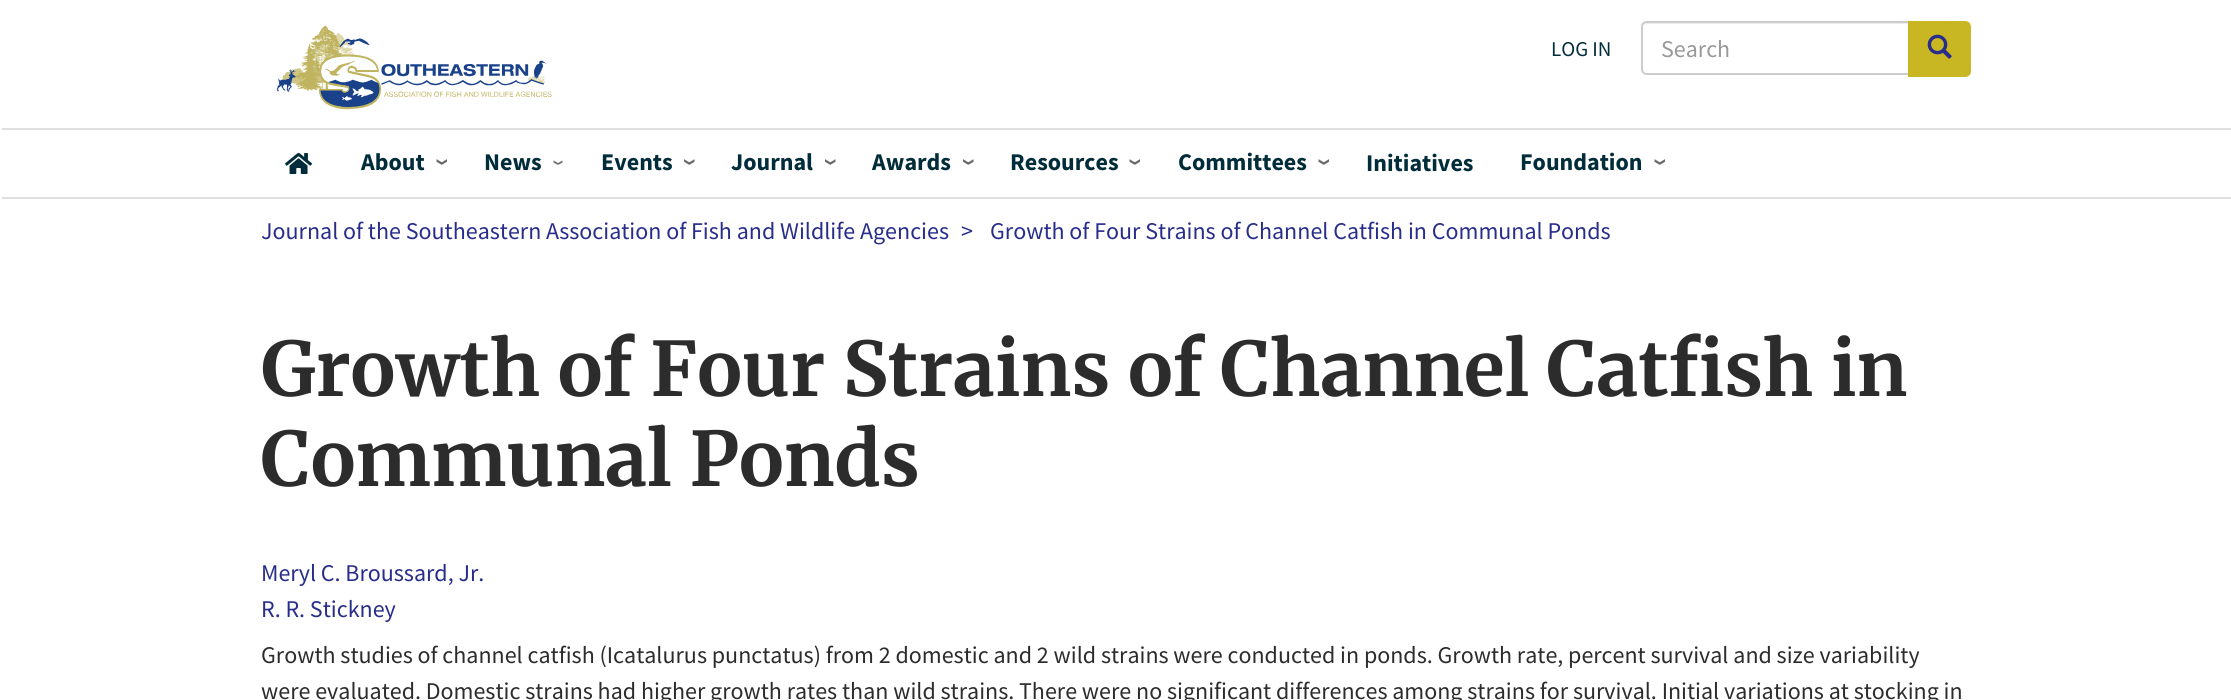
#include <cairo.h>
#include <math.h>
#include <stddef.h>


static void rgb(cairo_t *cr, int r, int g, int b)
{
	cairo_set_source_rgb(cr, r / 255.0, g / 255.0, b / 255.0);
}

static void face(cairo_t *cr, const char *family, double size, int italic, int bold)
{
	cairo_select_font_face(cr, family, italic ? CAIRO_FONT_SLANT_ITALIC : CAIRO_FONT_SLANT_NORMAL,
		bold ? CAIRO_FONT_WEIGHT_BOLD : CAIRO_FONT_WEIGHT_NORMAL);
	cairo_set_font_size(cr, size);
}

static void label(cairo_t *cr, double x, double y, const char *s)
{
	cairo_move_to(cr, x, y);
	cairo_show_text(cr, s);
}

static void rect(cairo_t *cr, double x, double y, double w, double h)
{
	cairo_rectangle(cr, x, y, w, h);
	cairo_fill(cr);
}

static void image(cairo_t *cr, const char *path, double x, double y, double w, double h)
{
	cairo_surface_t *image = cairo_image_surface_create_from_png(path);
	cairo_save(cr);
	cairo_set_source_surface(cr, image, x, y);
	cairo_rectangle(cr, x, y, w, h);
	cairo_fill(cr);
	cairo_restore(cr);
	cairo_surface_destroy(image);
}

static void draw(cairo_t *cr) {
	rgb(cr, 255, 255, 255);
	cairo_paint(cr);
	rgb(cr, 223, 223, 223);
	rect(cr, 2, 128, 2229, 2);
	image(cr, "image0.png", 276, 25, 276, 85);
	face(cr, "Source Sans Pro", 21, 0, 0);
	rgb(cr, 1, 44, 58);
	label(cr, 1551, 56, "LOG IN");
	rgb(cr, 236, 236, 236);
	cairo_new_path(cr);
	cairo_move_to(cr, 1647, 24);
	cairo_line_to(cr, 1908, 24);
	cairo_line_to(cr, 1908, 23);
	cairo_line_to(cr, 1648, 23);
	cairo_curve_to(cr, 1646, 23, 1645, 24, 1644, 25);
	cairo_close_path(cr);
	cairo_fill(cr);
	cairo_new_path(cr);
	cairo_move_to(cr, 1647, 22);
	cairo_line_to(cr, 1909, 22);
	cairo_line_to(cr, 1909, 74);
	cairo_line_to(cr, 1647, 74);
	cairo_curve_to(cr, 1644, 74, 1642, 72, 1642, 69);
	cairo_line_to(cr, 1642, 27);
	cairo_curve_to(cr, 1642, 24, 1644, 22, 1647, 22);
	cairo_close_path(cr);
	rgb(cr, 204, 204, 204);
	cairo_stroke(cr);
	face(cr, "Source Sans Pro", 24, 0, 0);
	rgb(cr, 153, 153, 153);
	label(cr, 1661, 57, "Search");
	rgb(cr, 200, 183, 34);
	cairo_new_path(cr);
	cairo_move_to(cr, 1909, 22);
	cairo_line_to(cr, 1965, 22);
	cairo_curve_to(cr, 1968, 22, 1970, 24, 1970, 27);
	cairo_line_to(cr, 1970, 71);
	cairo_curve_to(cr, 1970, 74, 1968, 76, 1965, 76);
	cairo_line_to(cr, 1909, 76);
	cairo_close_path(cr);
	cairo_fill_preserve(cr);
	cairo_stroke(cr);
	image(cr, "image1.png", 1927, 34, 25, 25);
	rgb(cr, 223, 223, 223);
	rect(cr, 2, 197, 2229, 2);
	image(cr, "image2.png", 285, 153, 27, 21);
	face(cr, "Source Sans Pro", 24, 0, 1);
	rgb(cr, 1, 44, 58);
	label(cr, 361, 170, "About");
	image(cr, "image3.png", 436, 159, 11, 6);
	label(cr, 484, 170, "News");
	image(cr, "image4.png", 553, 160, 10, 5);
	label(cr, 601, 170, "Events");
	image(cr, "image5.png", 684, 159, 11, 6);
	label(cr, 731, 170, "Journal");
	image(cr, "image5.png", 825, 159, 11, 6);
	label(cr, 872, 170, "Awards");
	image(cr, "image5.png", 963, 159, 11, 6);
	label(cr, 1010, 170, "Resources");
	image(cr, "image3.png", 1129, 159, 11, 6);
	label(cr, 1178, 170, "Committees");
	image(cr, "image3.png", 1318, 159, 11, 6);
	label(cr, 1366, 171, "Initiatives");
	label(cr, 1520, 170, "Foundation");
	image(cr, "image3.png", 1654, 159, 11, 6);
	face(cr, "Source Sans Pro", 24, 0, 0);
	rgb(cr, 40, 45, 139);
	label(cr, 261, 239, "Journal of the Southeastern Association of Fish and Wildlife Agencies");
	label(cr, 961, 239, ">");
	label(cr, 990, 239, "Growth of Four Strains of Channel Catfish in Communal Ponds");
	face(cr, "Merriweather", 75, 0, 1);
	rgb(cr, 44, 44, 44);
	label(cr, 261, 396, "Growth of Four Strains of Channel Catfish in");
	label(cr, 261, 486, "Communal Ponds");
	face(cr, "Source Sans Pro", 24, 0, 0);
	rgb(cr, 40, 45, 139);
	label(cr, 261, 581, "Meryl C. Broussard, Jr.");
	label(cr, 261, 617, "R. R. Stickney");
	rgb(cr, 44, 44, 44);
	label(cr, 261, 663, "Growth studies of channel catfish (Icatalurus punctatus) from 2 domestic and 2 wild strains were conducted in ponds. Growth rate, percent survival and size variability");
	label(cr, 261, 699, "were evaluated. Domestic strains had higher growth rates than wild strains. There were no significant differences among strains for survival. Initial variations at stocking in");
}

int main(void) {
	cairo_surface_t *surface = cairo_image_surface_create(CAIRO_FORMAT_RGB24, 2231, 700);
	cairo_t *cr = cairo_create(surface);
	cairo_font_options_t *options = cairo_font_options_create();
	cairo_font_options_set_hint_metrics(options, CAIRO_HINT_METRICS_OFF);
	cairo_font_options_set_hint_style(options, CAIRO_HINT_STYLE_NONE);
	cairo_set_font_options(cr, options);
	cairo_set_miter_limit(cr, 4);
	draw(cr);
	cairo_surface_write_to_png(surface, "render.png");
	cairo_font_options_destroy(options);
	cairo_destroy(cr);
	cairo_surface_destroy(surface);
	return 0;
}
